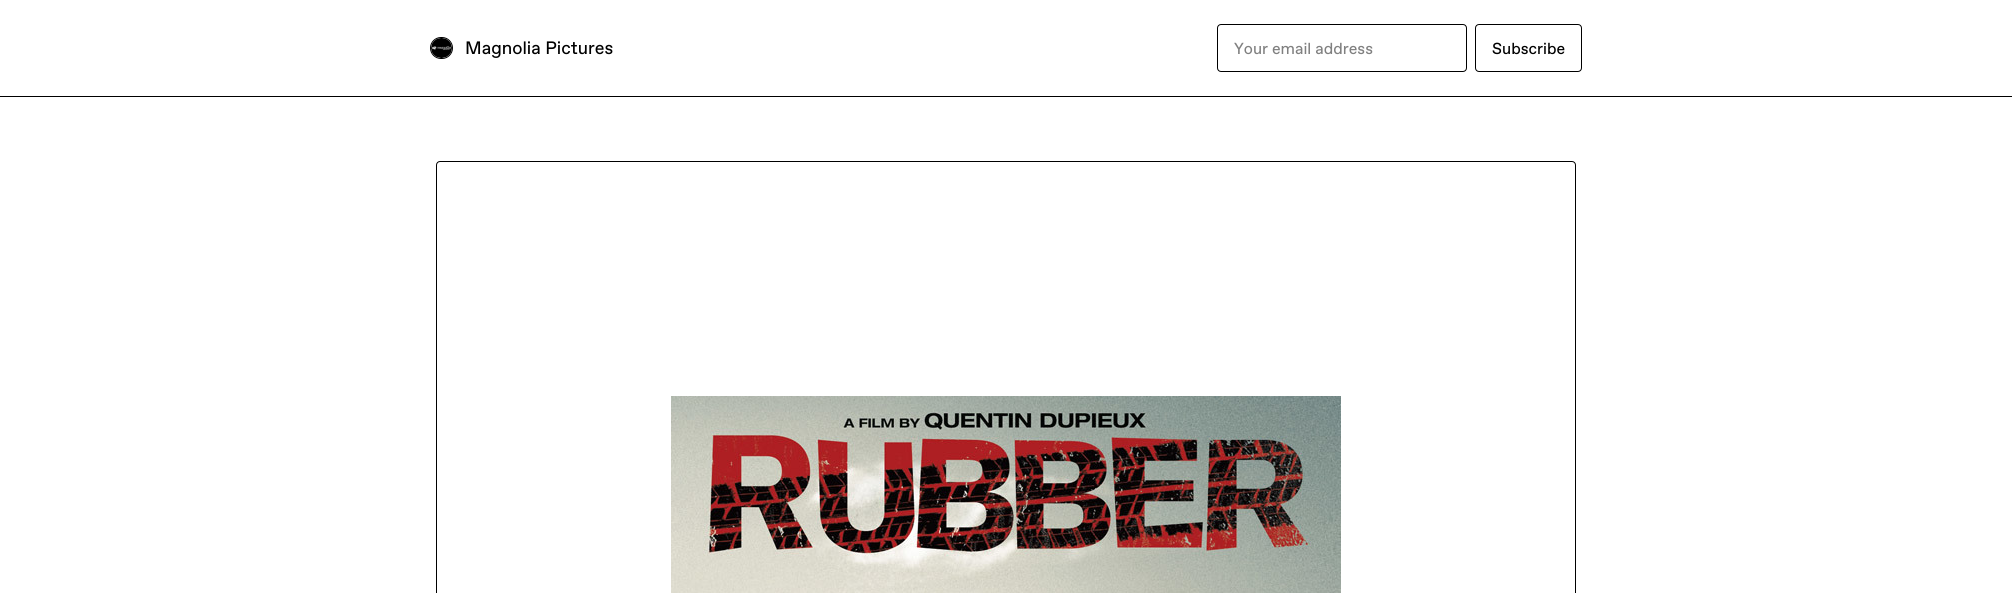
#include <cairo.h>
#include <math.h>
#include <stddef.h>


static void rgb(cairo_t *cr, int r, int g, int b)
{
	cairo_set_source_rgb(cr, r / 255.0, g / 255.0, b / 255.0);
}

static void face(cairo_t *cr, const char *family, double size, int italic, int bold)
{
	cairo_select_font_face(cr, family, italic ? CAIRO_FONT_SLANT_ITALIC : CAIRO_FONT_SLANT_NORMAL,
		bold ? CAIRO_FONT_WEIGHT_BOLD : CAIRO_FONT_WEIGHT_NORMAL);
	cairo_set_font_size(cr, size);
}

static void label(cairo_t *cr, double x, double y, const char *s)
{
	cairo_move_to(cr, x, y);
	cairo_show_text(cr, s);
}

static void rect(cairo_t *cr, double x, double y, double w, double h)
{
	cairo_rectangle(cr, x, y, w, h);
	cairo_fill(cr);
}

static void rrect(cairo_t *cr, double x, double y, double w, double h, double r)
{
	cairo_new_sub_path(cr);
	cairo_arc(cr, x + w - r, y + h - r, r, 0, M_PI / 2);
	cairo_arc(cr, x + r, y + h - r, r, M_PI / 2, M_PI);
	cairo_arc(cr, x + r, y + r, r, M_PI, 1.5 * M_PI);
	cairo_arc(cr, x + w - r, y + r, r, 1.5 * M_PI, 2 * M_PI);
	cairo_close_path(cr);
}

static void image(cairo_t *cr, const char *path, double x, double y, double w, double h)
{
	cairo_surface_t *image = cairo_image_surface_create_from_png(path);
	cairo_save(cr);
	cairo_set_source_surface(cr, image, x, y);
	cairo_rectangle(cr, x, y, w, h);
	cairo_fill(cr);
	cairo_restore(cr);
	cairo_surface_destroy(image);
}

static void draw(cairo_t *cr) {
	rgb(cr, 255, 255, 255);
	cairo_paint(cr);
	rgb(cr, 0, 0, 0);
	rect(cr, 0, 96, 2012, 1);
	rrect(cr, 430.5, 37.5, 22, 21, 10.5);
	cairo_set_line_width(cr, 1);
	cairo_stroke(cr);
	image(cr, "image0.png", 431, 38, 21, 20);
	face(cr, "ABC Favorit", 18, 0, 0);
	label(cr, 465, 54, "Magnolia Pictures");
	rrect(cr, 1217.5, 24.5, 249, 47, 3.5);
	cairo_stroke(cr);
	face(cr, "ABC Favorit", 16, 0, 0);
	rgb(cr, 128, 128, 128);
	label(cr, 1234, 54, "Your email address");
	rrect(cr, 1475.5, 24.5, 106, 47, 3.5);
	rgb(cr, 0, 0, 0);
	cairo_stroke(cr);
	label(cr, 1492, 54, "Subscribe");
	rrect(cr, 436.5, 161.5, 1139, 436, 3.5);
	cairo_stroke(cr);
	image(cr, "image1.png", 671, 396, 670, 197);
}

int main(void) {
	cairo_surface_t *surface = cairo_image_surface_create(CAIRO_FORMAT_RGB24, 2012, 593);
	cairo_t *cr = cairo_create(surface);
	cairo_font_options_t *options = cairo_font_options_create();
	cairo_font_options_set_hint_metrics(options, CAIRO_HINT_METRICS_OFF);
	cairo_font_options_set_hint_style(options, CAIRO_HINT_STYLE_NONE);
	cairo_set_font_options(cr, options);
	cairo_set_miter_limit(cr, 4);
	draw(cr);
	cairo_surface_write_to_png(surface, "render.png");
	cairo_font_options_destroy(options);
	cairo_destroy(cr);
	cairo_surface_destroy(surface);
	return 0;
}
